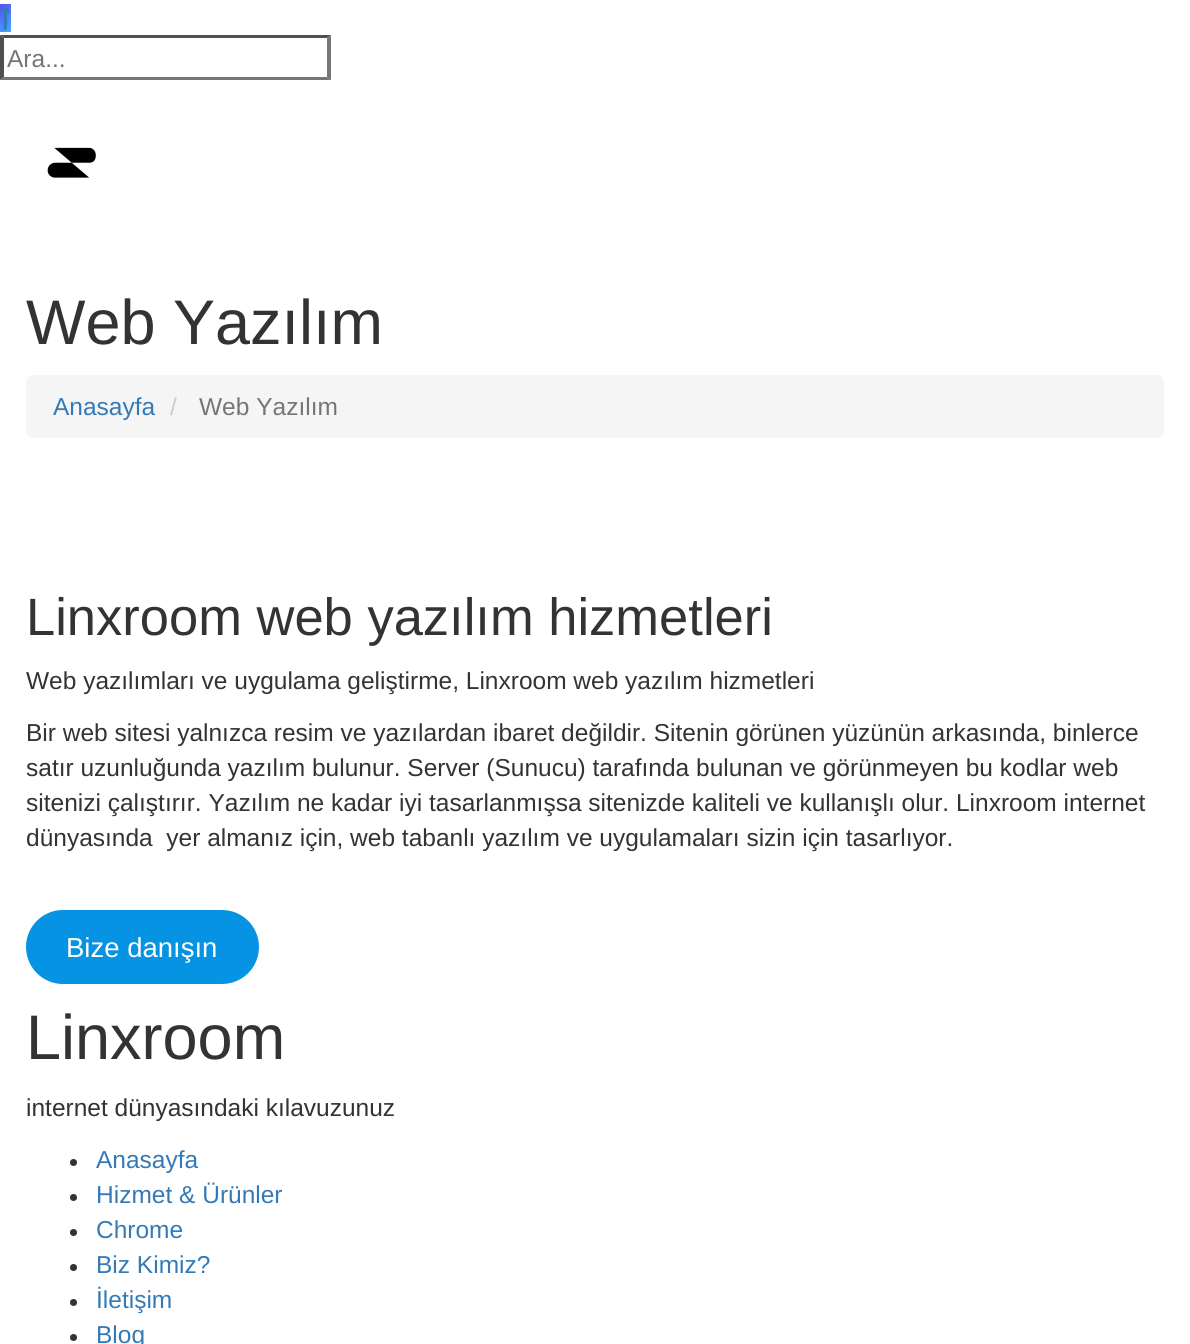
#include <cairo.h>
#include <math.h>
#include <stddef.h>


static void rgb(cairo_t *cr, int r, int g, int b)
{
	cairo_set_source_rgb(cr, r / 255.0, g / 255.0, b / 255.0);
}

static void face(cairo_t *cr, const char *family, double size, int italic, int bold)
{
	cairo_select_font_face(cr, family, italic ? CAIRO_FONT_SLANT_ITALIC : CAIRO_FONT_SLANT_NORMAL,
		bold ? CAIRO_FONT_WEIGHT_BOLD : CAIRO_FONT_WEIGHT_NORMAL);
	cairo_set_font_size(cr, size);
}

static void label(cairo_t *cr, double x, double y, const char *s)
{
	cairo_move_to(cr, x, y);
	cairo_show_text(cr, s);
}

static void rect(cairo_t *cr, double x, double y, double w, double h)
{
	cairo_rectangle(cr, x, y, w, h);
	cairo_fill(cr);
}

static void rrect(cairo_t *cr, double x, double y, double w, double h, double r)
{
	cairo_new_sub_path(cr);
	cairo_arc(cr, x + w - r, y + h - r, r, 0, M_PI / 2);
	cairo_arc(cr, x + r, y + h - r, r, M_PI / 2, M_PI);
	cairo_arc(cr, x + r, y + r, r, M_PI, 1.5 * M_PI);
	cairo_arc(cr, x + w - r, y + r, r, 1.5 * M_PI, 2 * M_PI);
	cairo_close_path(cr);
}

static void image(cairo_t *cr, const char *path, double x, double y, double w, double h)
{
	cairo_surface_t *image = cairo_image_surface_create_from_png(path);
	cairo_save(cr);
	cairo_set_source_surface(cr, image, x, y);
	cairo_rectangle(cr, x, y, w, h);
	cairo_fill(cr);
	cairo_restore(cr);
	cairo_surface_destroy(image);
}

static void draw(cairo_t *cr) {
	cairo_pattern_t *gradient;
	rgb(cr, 255, 255, 255);
	cairo_paint(cr);
	gradient = cairo_pattern_create_linear(-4.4, 7.9, 15, 27);
	cairo_pattern_add_color_stop_rgba(gradient, 0, 0.345, 0.294, 0.984, 1);
	cairo_pattern_add_color_stop_rgba(gradient, 0.99, 0.271, 0.667, 0.992, 1);
	cairo_set_source(cr, gradient);
	cairo_pattern_destroy(gradient);
	rect(cr, 0, 4, 11, 28);
	image(cr, "image0.png", 0, 6, 11, 24);
	rgb(cr, 79, 79, 79);
	cairo_new_path(cr);
	cairo_move_to(cr, 0, 35);
	cairo_line_to(cr, 331, 35);
	cairo_line_to(cr, 327, 38);
	cairo_line_to(cr, 4, 38);
	cairo_close_path(cr);
	cairo_fill(cr);
	rgb(cr, 118, 118, 118);
	cairo_new_path(cr);
	cairo_move_to(cr, 331, 35);
	cairo_line_to(cr, 331, 80);
	cairo_line_to(cr, 327, 77);
	cairo_line_to(cr, 327, 38);
	cairo_close_path(cr);
	cairo_fill(cr);
	cairo_new_path(cr);
	cairo_move_to(cr, 331, 80);
	cairo_line_to(cr, 0, 80);
	cairo_line_to(cr, 4, 77);
	cairo_line_to(cr, 327, 77);
	cairo_close_path(cr);
	cairo_fill(cr);
	rgb(cr, 79, 79, 79);
	cairo_new_path(cr);
	cairo_move_to(cr, 0, 80);
	cairo_line_to(cr, 0, 35);
	cairo_line_to(cr, 4, 38);
	cairo_line_to(cr, 4, 77);
	cairo_close_path(cr);
	cairo_fill(cr);
	face(cr, "Liberation Sans", 24.5, 0, 0);
	rgb(cr, 117, 117, 117);
	label(cr, 7, 67, "Ara...");
	image(cr, "image1.png", 47, 147, 49, 31);
	face(cr, "Liberation Sans", 63, 0, 0);
	rgb(cr, 51, 51, 51);
	label(cr, 26, 344, "Web Yazılım");
	rgb(cr, 245, 245, 245);
	rrect(cr, 26, 375, 1138, 63, 7);
	cairo_fill(cr);
	face(cr, "Liberation Sans", 24.5, 0, 0);
	rgb(cr, 51, 122, 183);
	label(cr, 53, 415, "Anasayfa");
	rgb(cr, 204, 204, 204);
	label(cr, 170, 415, "/");
	rgb(cr, 117, 117, 117);
	label(cr, 199, 415, "Web Yazılım");
	face(cr, "Liberation Sans", 52.5, 0, 0);
	rgb(cr, 51, 51, 51);
	label(cr, 26, 635, "Linxroom web yazılım hizmetleri");
	face(cr, "Liberation Sans", 24.5, 0, 0);
	label(cr, 26, 689, "Web yazılımları ve uygulama geliştirme, Linxroom web yazılım hizmetleri");
	label(cr, 26, 741, "Bir web sitesi yalnızca resim ve yazılardan ibaret değildir. Sitenin görünen yüzünün arkasında, binlerce");
	label(cr, 26, 776, "satır uzunluğunda yazılım bulunur. Server (Sunucu) tarafında bulunan ve görünmeyen bu kodlar web");
	label(cr, 26, 811, "sitenizi çalıştırır. Yazılım ne kadar iyi tasarlanmışsa sitenizde kaliteli ve kullanışlı olur. Linxroom internet");
	label(cr, 26, 846, "dünyasında  yer almanız için, web tabanlı yazılım ve uygulamaları sizin için tasarlıyor.");
	rgb(cr, 6, 147, 227);
	rrect(cr, 26, 910, 233, 74, 37);
	cairo_fill(cr);
	face(cr, "Liberation Sans", 27.5, 0, 0);
	rgb(cr, 255, 255, 255);
	label(cr, 66, 957, "Bize danışın");
	face(cr, "Liberation Sans", 63, 0, 0);
	rgb(cr, 51, 51, 51);
	label(cr, 26, 1059, "Linxroom");
	face(cr, "Liberation Sans", 24.5, 0, 0);
	label(cr, 26, 1116, "internet dünyasındaki kılavuzunuz");
	cairo_new_path(cr);
	cairo_arc(cr, 73.5, 1162.5, 3.5, 0, 2 * M_PI);
	cairo_fill(cr);
	rgb(cr, 51, 122, 183);
	label(cr, 96, 1168, "Anasayfa");
	rgb(cr, 51, 51, 51);
	cairo_new_path(cr);
	cairo_arc(cr, 73.5, 1197.5, 3.5, 0, 2 * M_PI);
	cairo_fill(cr);
	rgb(cr, 51, 122, 183);
	label(cr, 96, 1203, "Hizmet & Ürünler");
	rgb(cr, 51, 51, 51);
	cairo_new_path(cr);
	cairo_arc(cr, 73.5, 1232.5, 3.5, 0, 2 * M_PI);
	cairo_fill(cr);
	rgb(cr, 51, 122, 183);
	label(cr, 96, 1238, "Chrome");
	rgb(cr, 51, 51, 51);
	cairo_new_path(cr);
	cairo_arc(cr, 73.5, 1267.5, 3.5, 0, 2 * M_PI);
	cairo_fill(cr);
	rgb(cr, 51, 122, 183);
	label(cr, 96, 1273, "Biz Kimiz?");
	rgb(cr, 51, 51, 51);
	cairo_new_path(cr);
	cairo_arc(cr, 73.5, 1302.5, 3.5, 0, 2 * M_PI);
	cairo_fill(cr);
	rgb(cr, 51, 122, 183);
	label(cr, 96, 1308, "İletişim");
	rgb(cr, 51, 51, 51);
	cairo_new_path(cr);
	cairo_arc(cr, 73.5, 1337.5, 3.5, 0, 2 * M_PI);
	cairo_fill(cr);
	rgb(cr, 51, 122, 183);
	label(cr, 96, 1343, "Blog");
}

int main(void) {
	cairo_surface_t *surface = cairo_image_surface_create(CAIRO_FORMAT_RGB24, 1190, 1344);
	cairo_t *cr = cairo_create(surface);
	cairo_font_options_t *options = cairo_font_options_create();
	cairo_font_options_set_hint_metrics(options, CAIRO_HINT_METRICS_OFF);
	cairo_font_options_set_hint_style(options, CAIRO_HINT_STYLE_NONE);
	cairo_set_font_options(cr, options);
	cairo_set_miter_limit(cr, 4);
	draw(cr);
	cairo_surface_write_to_png(surface, "render.png");
	cairo_font_options_destroy(options);
	cairo_destroy(cr);
	cairo_surface_destroy(surface);
	return 0;
}
